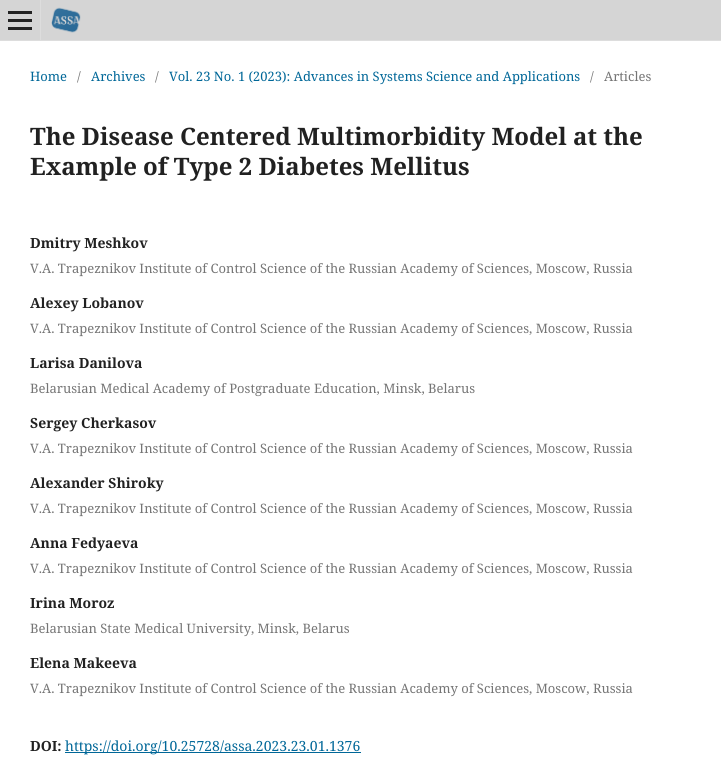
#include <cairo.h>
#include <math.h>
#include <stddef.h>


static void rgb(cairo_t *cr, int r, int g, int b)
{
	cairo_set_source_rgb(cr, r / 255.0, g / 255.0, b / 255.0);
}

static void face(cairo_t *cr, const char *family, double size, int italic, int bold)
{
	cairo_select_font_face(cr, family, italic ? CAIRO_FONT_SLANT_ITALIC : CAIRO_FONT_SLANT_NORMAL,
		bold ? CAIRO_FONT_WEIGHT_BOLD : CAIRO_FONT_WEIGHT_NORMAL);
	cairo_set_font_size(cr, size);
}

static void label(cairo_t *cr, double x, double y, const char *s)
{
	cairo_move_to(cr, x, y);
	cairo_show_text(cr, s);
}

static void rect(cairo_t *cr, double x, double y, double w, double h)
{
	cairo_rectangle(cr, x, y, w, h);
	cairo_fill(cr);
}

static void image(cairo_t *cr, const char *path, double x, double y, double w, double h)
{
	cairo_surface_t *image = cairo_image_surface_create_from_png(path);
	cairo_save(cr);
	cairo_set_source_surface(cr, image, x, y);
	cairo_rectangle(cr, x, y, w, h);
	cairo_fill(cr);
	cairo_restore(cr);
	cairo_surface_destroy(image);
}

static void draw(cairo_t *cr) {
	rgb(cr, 255, 255, 255);
	cairo_paint(cr);
	rgb(cr, 213, 213, 213);
	rect(cr, 0, 0, 721, 40);
	rgb(cr, 221, 221, 221);
	rect(cr, 0, 40, 721, 1);
	rect(cr, 40, 0, 1, 40);
	rgb(cr, 34, 34, 34);
	rect(cr, 8, 27, 24, 3);
	rect(cr, 8, 11, 24, 3);
	rect(cr, 8, 19, 24, 3);
	image(cr, "image0.png", 51, 7, 30, 26);
	face(cr, "Noto Serif", 13, 0, 0);
	rgb(cr, 0, 103, 152);
	label(cr, 30, 81, "Home");
	rgb(cr, 117, 117, 117);
	label(cr, 77, 81, "/");
	rgb(cr, 0, 103, 152);
	label(cr, 91, 81, "Archives");
	rgb(cr, 117, 117, 117);
	label(cr, 155, 81, "/");
	rgb(cr, 0, 103, 152);
	label(cr, 169, 81, "Vol. 23 No. 1 (2023): Advances in Systems Science and Applications");
	rgb(cr, 117, 117, 117);
	label(cr, 590, 81, "/");
	label(cr, 604, 81, "Articles");
	face(cr, "Noto Serif", 24, 0, 1);
	rgb(cr, 33, 33, 33);
	label(cr, 30, 145, "The Disease Centered Multimorbidity Model at the");
	label(cr, 30, 175, "Example of Type 2 Diabetes Mellitus");
	face(cr, "Noto Serif", 14, 0, 1);
	label(cr, 30, 248, "Dmitry Meshkov");
	face(cr, "Noto Serif", 13, 0, 0);
	rgb(cr, 117, 117, 117);
	label(cr, 30, 273, "V.A. Trapeznikov Institute of Control Science of the Russian Academy of Sciences, Moscow, Russia");
	face(cr, "Noto Serif", 14, 0, 1);
	rgb(cr, 33, 33, 33);
	label(cr, 30, 308, "Alexey Lobanov");
	face(cr, "Noto Serif", 13, 0, 0);
	rgb(cr, 117, 117, 117);
	label(cr, 30, 333, "V.A. Trapeznikov Institute of Control Science of the Russian Academy of Sciences, Moscow, Russia");
	face(cr, "Noto Serif", 14, 0, 1);
	rgb(cr, 33, 33, 33);
	label(cr, 30, 368, "Larisa Danilova");
	face(cr, "Noto Serif", 13, 0, 0);
	rgb(cr, 117, 117, 117);
	label(cr, 30, 393, "Belarusian Medical Academy of Postgraduate Education, Minsk, Belarus");
	face(cr, "Noto Serif", 14, 0, 1);
	rgb(cr, 33, 33, 33);
	label(cr, 30, 428, "Sergey Cherkasov");
	face(cr, "Noto Serif", 13, 0, 0);
	rgb(cr, 117, 117, 117);
	label(cr, 30, 453, "V.A. Trapeznikov Institute of Control Science of the Russian Academy of Sciences, Moscow, Russia");
	face(cr, "Noto Serif", 14, 0, 1);
	rgb(cr, 33, 33, 33);
	label(cr, 30, 488, "Alexander Shiroky");
	face(cr, "Noto Serif", 13, 0, 0);
	rgb(cr, 117, 117, 117);
	label(cr, 30, 513, "V.A. Trapeznikov Institute of Control Science of the Russian Academy of Sciences, Moscow, Russia");
	face(cr, "Noto Serif", 14, 0, 1);
	rgb(cr, 33, 33, 33);
	label(cr, 30, 548, "Anna Fedyaeva");
	face(cr, "Noto Serif", 13, 0, 0);
	rgb(cr, 117, 117, 117);
	label(cr, 30, 573, "V.A. Trapeznikov Institute of Control Science of the Russian Academy of Sciences, Moscow, Russia");
	face(cr, "Noto Serif", 14, 0, 1);
	rgb(cr, 33, 33, 33);
	label(cr, 30, 608, "Irina Moroz");
	face(cr, "Noto Serif", 13, 0, 0);
	rgb(cr, 117, 117, 117);
	label(cr, 30, 633, "Belarusian State Medical University, Minsk, Belarus");
	face(cr, "Noto Serif", 14, 0, 1);
	rgb(cr, 33, 33, 33);
	label(cr, 30, 668, "Elena Makeeva");
	face(cr, "Noto Serif", 13, 0, 0);
	rgb(cr, 117, 117, 117);
	label(cr, 30, 693, "V.A. Trapeznikov Institute of Control Science of the Russian Academy of Sciences, Moscow, Russia");
	face(cr, "Noto Serif", 14, 0, 1);
	rgb(cr, 33, 33, 33);
	label(cr, 30, 751, "DOI:");
	rgb(cr, 0, 103, 152);
	rect(cr, 65, 752, 296, 1);
	face(cr, "Noto Serif", 14, 0, 0);
	label(cr, 65, 751, "https://doi.org/10.25728/assa.2023.23.01.1376");
}

int main(void) {
	cairo_surface_t *surface = cairo_image_surface_create(CAIRO_FORMAT_RGB24, 721, 760);
	cairo_t *cr = cairo_create(surface);
	cairo_font_options_t *options = cairo_font_options_create();
	cairo_font_options_set_hint_metrics(options, CAIRO_HINT_METRICS_OFF);
	cairo_font_options_set_hint_style(options, CAIRO_HINT_STYLE_NONE);
	cairo_set_font_options(cr, options);
	cairo_set_miter_limit(cr, 4);
	draw(cr);
	cairo_surface_write_to_png(surface, "render.png");
	cairo_font_options_destroy(options);
	cairo_destroy(cr);
	cairo_surface_destroy(surface);
	return 0;
}
